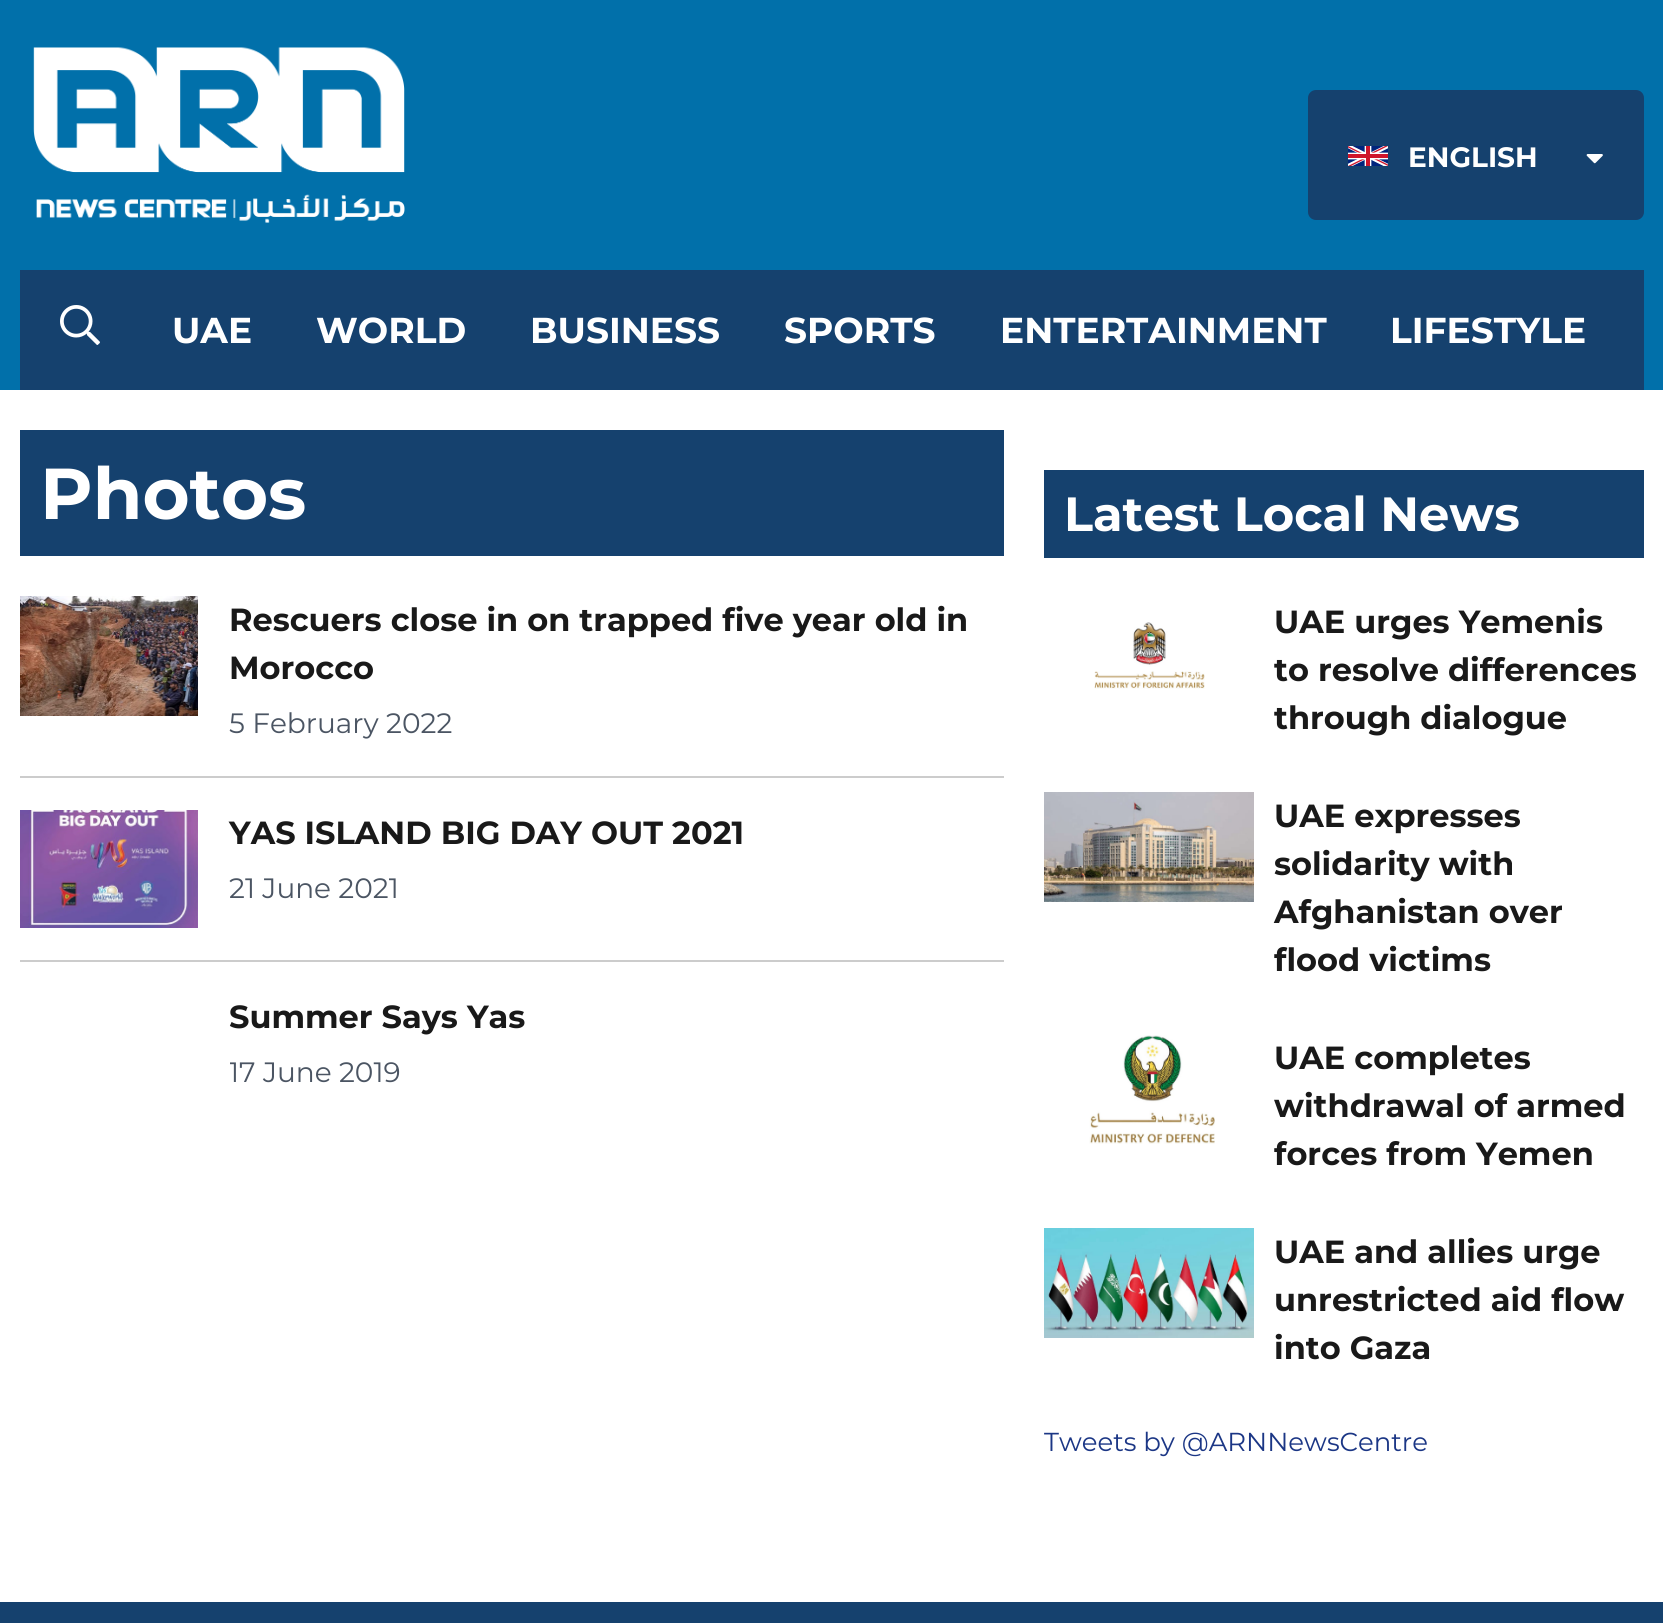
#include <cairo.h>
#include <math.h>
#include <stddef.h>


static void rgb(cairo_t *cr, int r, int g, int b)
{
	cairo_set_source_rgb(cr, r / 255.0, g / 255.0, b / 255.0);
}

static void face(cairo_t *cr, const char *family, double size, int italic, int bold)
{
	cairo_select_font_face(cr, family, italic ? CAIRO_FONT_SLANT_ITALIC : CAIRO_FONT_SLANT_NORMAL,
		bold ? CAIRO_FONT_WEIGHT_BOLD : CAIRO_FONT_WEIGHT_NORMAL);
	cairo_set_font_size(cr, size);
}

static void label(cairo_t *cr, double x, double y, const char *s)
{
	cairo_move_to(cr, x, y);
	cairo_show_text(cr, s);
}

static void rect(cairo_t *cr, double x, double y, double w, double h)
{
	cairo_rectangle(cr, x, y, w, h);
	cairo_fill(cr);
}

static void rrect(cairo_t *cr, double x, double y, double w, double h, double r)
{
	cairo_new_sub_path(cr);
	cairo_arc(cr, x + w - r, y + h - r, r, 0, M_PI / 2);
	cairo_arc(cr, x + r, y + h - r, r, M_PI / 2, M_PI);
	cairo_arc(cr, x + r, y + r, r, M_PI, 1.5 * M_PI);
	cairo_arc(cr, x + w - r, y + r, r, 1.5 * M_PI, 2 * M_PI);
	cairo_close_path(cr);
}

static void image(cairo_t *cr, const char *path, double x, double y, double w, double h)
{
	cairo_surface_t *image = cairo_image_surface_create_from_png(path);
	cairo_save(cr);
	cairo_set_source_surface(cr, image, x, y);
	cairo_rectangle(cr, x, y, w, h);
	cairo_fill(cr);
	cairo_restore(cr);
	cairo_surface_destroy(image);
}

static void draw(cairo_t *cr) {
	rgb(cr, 255, 255, 255);
	cairo_paint(cr);
	rgb(cr, 1, 112, 170);
	rect(cr, 0, 0, 1663, 390);
	image(cr, "image0.png", 33, 47, 372, 176);
	rgb(cr, 21, 65, 110);
	rrect(cr, 1308, 90, 336, 130, 8);
	cairo_fill(cr);
	image(cr, "image1.png", 1348, 146, 40, 20);
	face(cr, "Montserrat", 28, 0, 1);
	rgb(cr, 255, 255, 255);
	label(cr, 1408, 167, "ENGLISH");
	image(cr, "image2.png", 1586, 154, 17, 10);
	rgb(cr, 21, 65, 110);
	rect(cr, 20, 270, 1624, 120);
	image(cr, "image3.png", 60, 305, 40, 40);
	face(cr, "Montserrat", 36, 0, 1);
	rgb(cr, 255, 255, 255);
	label(cr, 172, 343, "UAE");
	label(cr, 316, 343, "WORLD");
	label(cr, 530, 343, "BUSINESS");
	label(cr, 784, 343, "SPORTS");
	label(cr, 1000, 343, "ENTERTAINMENT");
	label(cr, 1390, 343, "LIFESTYLE");
	rgb(cr, 21, 65, 110);
	rect(cr, 20, 430, 984, 126);
	face(cr, "Montserrat", 72, 0, 1);
	rgb(cr, 255, 255, 255);
	label(cr, 40, 519, "Photos");
	image(cr, "image4.png", 20, 596, 178, 120);
	face(cr, "Montserrat", 32, 0, 1);
	rgb(cr, 25, 25, 25);
	label(cr, 229, 631, "Rescuers close in on trapped five year old in");
	label(cr, 229, 679, "Morocco");
	face(cr, "Montserrat", 28, 0, 0);
	rgb(cr, 75, 85, 99);
	label(cr, 229, 733, "5 February 2022");
	rgb(cr, 204, 204, 204);
	rect(cr, 20, 776, 984, 2);
	image(cr, "image5.png", 20, 810, 178, 118);
	face(cr, "Montserrat", 32, 0, 1);
	rgb(cr, 25, 25, 25);
	label(cr, 229, 844, "YAS ISLAND BIG DAY OUT 2021");
	face(cr, "Montserrat", 28, 0, 0);
	rgb(cr, 75, 85, 99);
	label(cr, 229, 898, "21 June 2021");
	rgb(cr, 204, 204, 204);
	rect(cr, 20, 960, 984, 2);
	face(cr, "Montserrat", 32, 0, 1);
	rgb(cr, 25, 25, 25);
	label(cr, 229, 1028, "Summer Says Yas");
	cairo_save(cr);
	cairo_rectangle(cr, 230, 1042, 774, 52);
	cairo_clip(cr);
	face(cr, "Montserrat", 28, 0, 0);
	rgb(cr, 75, 85, 99);
	label(cr, 229, 1082, "17 June 2019");
	cairo_restore(cr);
	rgb(cr, 21, 65, 110);
	rect(cr, 1044, 470, 600, 88);
	face(cr, "Montserrat", 48, 0, 1);
	rgb(cr, 255, 255, 255);
	label(cr, 1064, 531, "Latest Local News");
	image(cr, "image6.png", 1094, 622, 111, 67);
	face(cr, "Montserrat", 32, 0, 1);
	rgb(cr, 25, 25, 25);
	label(cr, 1274, 633, "UAE urges Yemenis");
	label(cr, 1274, 681, "to resolve differences");
	label(cr, 1274, 729, "through dialogue");
	image(cr, "image7.png", 1044, 792, 210, 110);
	label(cr, 1274, 827, "UAE expresses");
	label(cr, 1274, 875, "solidarity with");
	label(cr, 1274, 923, "Afghanistan over");
	label(cr, 1274, 971, "flood victims");
	image(cr, "image8.png", 1089, 1035, 126, 109);
	label(cr, 1274, 1069, "UAE completes");
	label(cr, 1274, 1117, "withdrawal of armed");
	label(cr, 1274, 1165, "forces from Yemen");
	image(cr, "image9.png", 1044, 1228, 210, 110);
	label(cr, 1274, 1263, "UAE and allies urge");
	label(cr, 1274, 1311, "unrestricted aid flow");
	label(cr, 1274, 1359, "into Gaza");
	face(cr, "Montserrat", 26, 0, 0);
	rgb(cr, 27, 54, 133);
	label(cr, 1044, 1451, "Tweets by @ARNNewsCentre");
	rgb(cr, 21, 65, 110);
	rect(cr, 0, 1602, 1663, 21);
}

int main(void) {
	cairo_surface_t *surface = cairo_image_surface_create(CAIRO_FORMAT_RGB24, 1663, 1623);
	cairo_t *cr = cairo_create(surface);
	cairo_font_options_t *options = cairo_font_options_create();
	cairo_font_options_set_hint_metrics(options, CAIRO_HINT_METRICS_OFF);
	cairo_font_options_set_hint_style(options, CAIRO_HINT_STYLE_NONE);
	cairo_set_font_options(cr, options);
	cairo_set_miter_limit(cr, 4);
	draw(cr);
	cairo_surface_write_to_png(surface, "render.png");
	cairo_font_options_destroy(options);
	cairo_destroy(cr);
	cairo_surface_destroy(surface);
	return 0;
}
